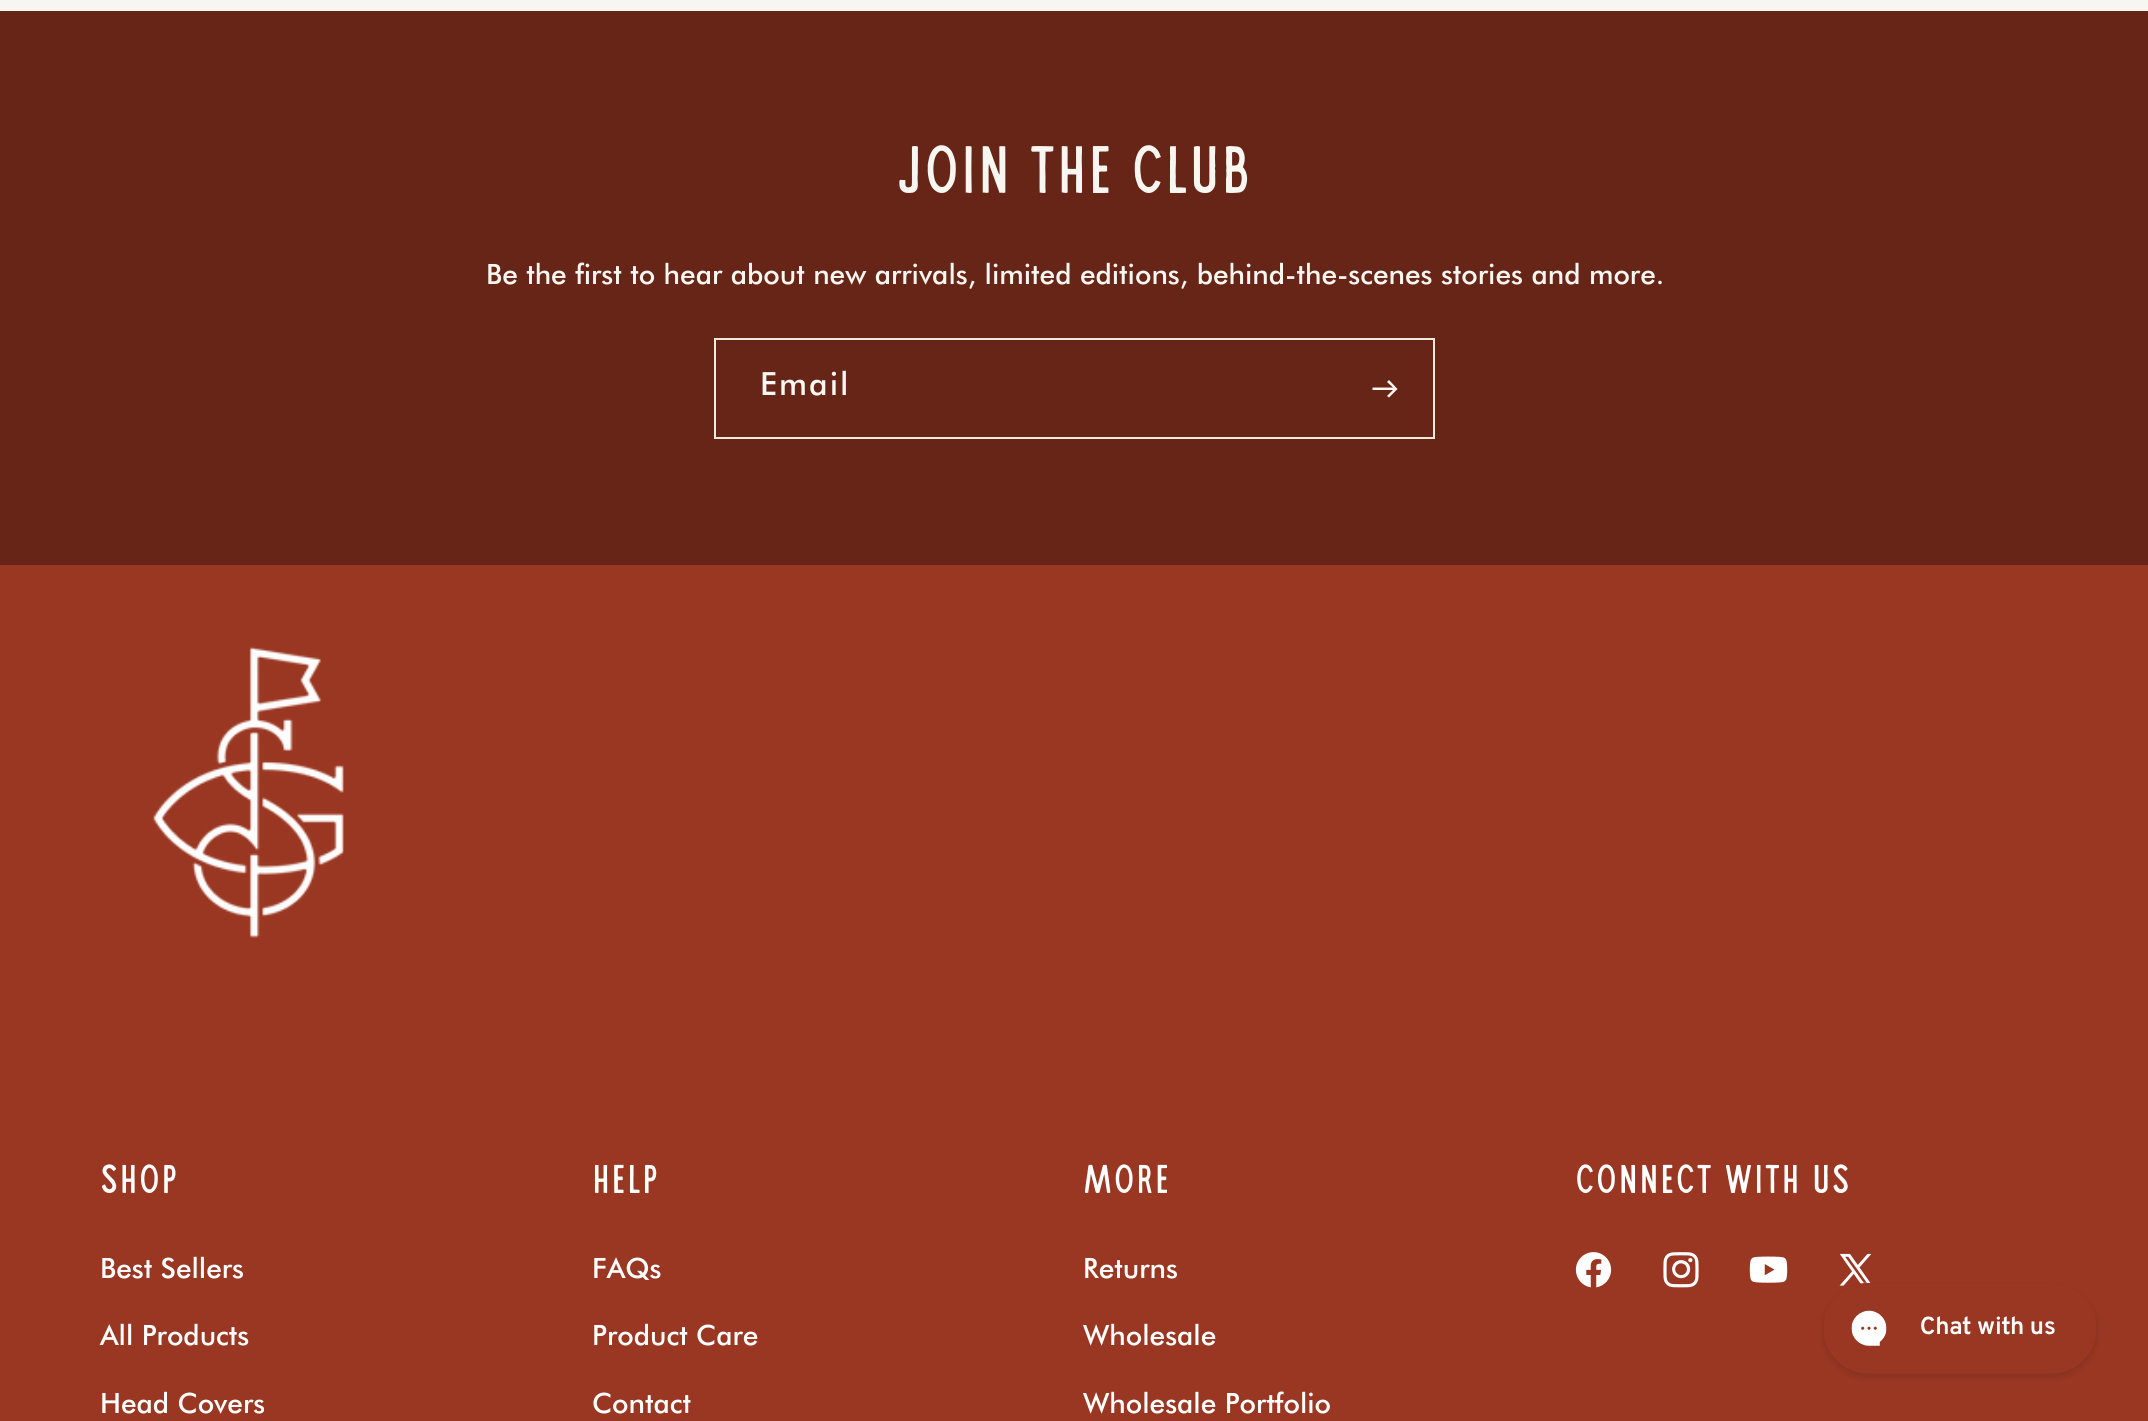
#include <cairo.h>
#include <math.h>
#include <stddef.h>


static void rgb(cairo_t *cr, int r, int g, int b)
{
	cairo_set_source_rgb(cr, r / 255.0, g / 255.0, b / 255.0);
}

static void face(cairo_t *cr, const char *family, double size, int italic, int bold)
{
	cairo_select_font_face(cr, family, italic ? CAIRO_FONT_SLANT_ITALIC : CAIRO_FONT_SLANT_NORMAL,
		bold ? CAIRO_FONT_WEIGHT_BOLD : CAIRO_FONT_WEIGHT_NORMAL);
	cairo_set_font_size(cr, size);
}

static void label(cairo_t *cr, double x, double y, const char *s)
{
	cairo_move_to(cr, x, y);
	cairo_show_text(cr, s);
}

static void tracked(cairo_t *cr, double x, double y, const char *s, double letter, double word)
{
	cairo_move_to(cr, x, y);
	while (*s) {
		char ch[5] = {0};
		int n = 0;
		do ch[n++] = *s++; while ((*s & 0xC0) == 0x80);
		cairo_show_text(cr, ch);
		cairo_rel_move_to(cr, letter + word * (*ch == ' '), 0);
	}
}

static void rect(cairo_t *cr, double x, double y, double w, double h)
{
	cairo_rectangle(cr, x, y, w, h);
	cairo_fill(cr);
}

static void image(cairo_t *cr, const char *path, double x, double y, double w, double h)
{
	cairo_surface_t *image = cairo_image_surface_create_from_png(path);
	cairo_save(cr);
	cairo_set_source_surface(cr, image, x, y);
	cairo_rectangle(cr, x, y, w, h);
	cairo_fill(cr);
	cairo_restore(cr);
	cairo_surface_destroy(image);
}

static void draw(cairo_t *cr) {
	rgb(cr, 248, 246, 241);
	cairo_paint(cr);
	rgb(cr, 103, 37, 23);
	rect(cr, 0, 11, 2148, 554);
	face(cr, "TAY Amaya", 63, 0, 0);
	rgb(cr, 248, 246, 241);
	tracked(cr, 897, 193, "JOIN THE CLUB", 1.25, 0);
	face(cr, "Futura Medium", 28, 0, 0);
	label(cr, 486, 284, "Be the first to hear about new arrivals, limited editions, behind-the-scenes stories and more.");
	cairo_rectangle(cr, 715, 339, 719, 99);
	rgb(cr, 238, 235, 222);
	cairo_stroke(cr);
	face(cr, "Futura Medium", 32, 0, 0);
	rgb(cr, 248, 246, 241);
	tracked(cr, 760, 395, "Email", 2, 0);
	cairo_new_path(cr);
	cairo_move_to(cr, 1389, 397.5);
	cairo_line_to(cr, 1387, 396);
	cairo_line_to(cr, 1393, 390);
	cairo_line_to(cr, 1372.5, 390);
	cairo_line_to(cr, 1372.5, 387.5);
	cairo_line_to(cr, 1393, 387.5);
	cairo_line_to(cr, 1387, 382);
	cairo_line_to(cr, 1389, 380);
	cairo_line_to(cr, 1397.5, 389);
	cairo_close_path(cr);
	cairo_fill(cr);
	rgb(cr, 154, 55, 34);
	rect(cr, 0, 565, 2148, 856);
	image(cr, "image0.png", 152, 646, 192, 292);
	face(cr, "TAY Amaya", 37.75, 0, 0);
	rgb(cr, 255, 255, 255);
	tracked(cr, 100, 1193, "SHOP", 1.25, 0);
	face(cr, "Futura Medium", 28, 0, 0);
	label(cr, 100, 1278, "Best Sellers");
	label(cr, 100, 1345, "All Products");
	label(cr, 100, 1413, "Head Covers");
	face(cr, "TAY Amaya", 37.75, 0, 0);
	tracked(cr, 592, 1193, "HELP", 1.25, 0);
	face(cr, "Futura Medium", 28, 0, 0);
	label(cr, 592, 1278, "FAQs");
	label(cr, 592, 1345, "Product Care");
	label(cr, 592, 1413, "Contact");
	face(cr, "TAY Amaya", 37.75, 0, 0);
	tracked(cr, 1083, 1193, "MORE", 1.25, 0);
	face(cr, "Futura Medium", 28, 0, 0);
	label(cr, 1083, 1278, "Returns");
	label(cr, 1083, 1345, "Wholesale");
	label(cr, 1083, 1413, "Wholesale Portfolio");
	face(cr, "TAY Amaya", 37.75, 0, 0);
	tracked(cr, 1575, 1193, "CONNECT WITH US", 1.25, 0);
	image(cr, "image1.png", 1575, 1252, 37, 36);
	image(cr, "image2.png", 1663, 1252, 36, 36);
	image(cr, "image3.png", 1749, 1256, 39, 27);
	image(cr, "image4.png", 1839, 1253, 33, 33);
	image(cr, "image5.png", 1820, 1282, 280, 99);
}

int main(void) {
	cairo_surface_t *surface = cairo_image_surface_create(CAIRO_FORMAT_RGB24, 2148, 1421);
	cairo_t *cr = cairo_create(surface);
	cairo_font_options_t *options = cairo_font_options_create();
	cairo_font_options_set_hint_metrics(options, CAIRO_HINT_METRICS_OFF);
	cairo_font_options_set_hint_style(options, CAIRO_HINT_STYLE_NONE);
	cairo_set_font_options(cr, options);
	cairo_set_miter_limit(cr, 4);
	draw(cr);
	cairo_surface_write_to_png(surface, "render.png");
	cairo_font_options_destroy(options);
	cairo_destroy(cr);
	cairo_surface_destroy(surface);
	return 0;
}
